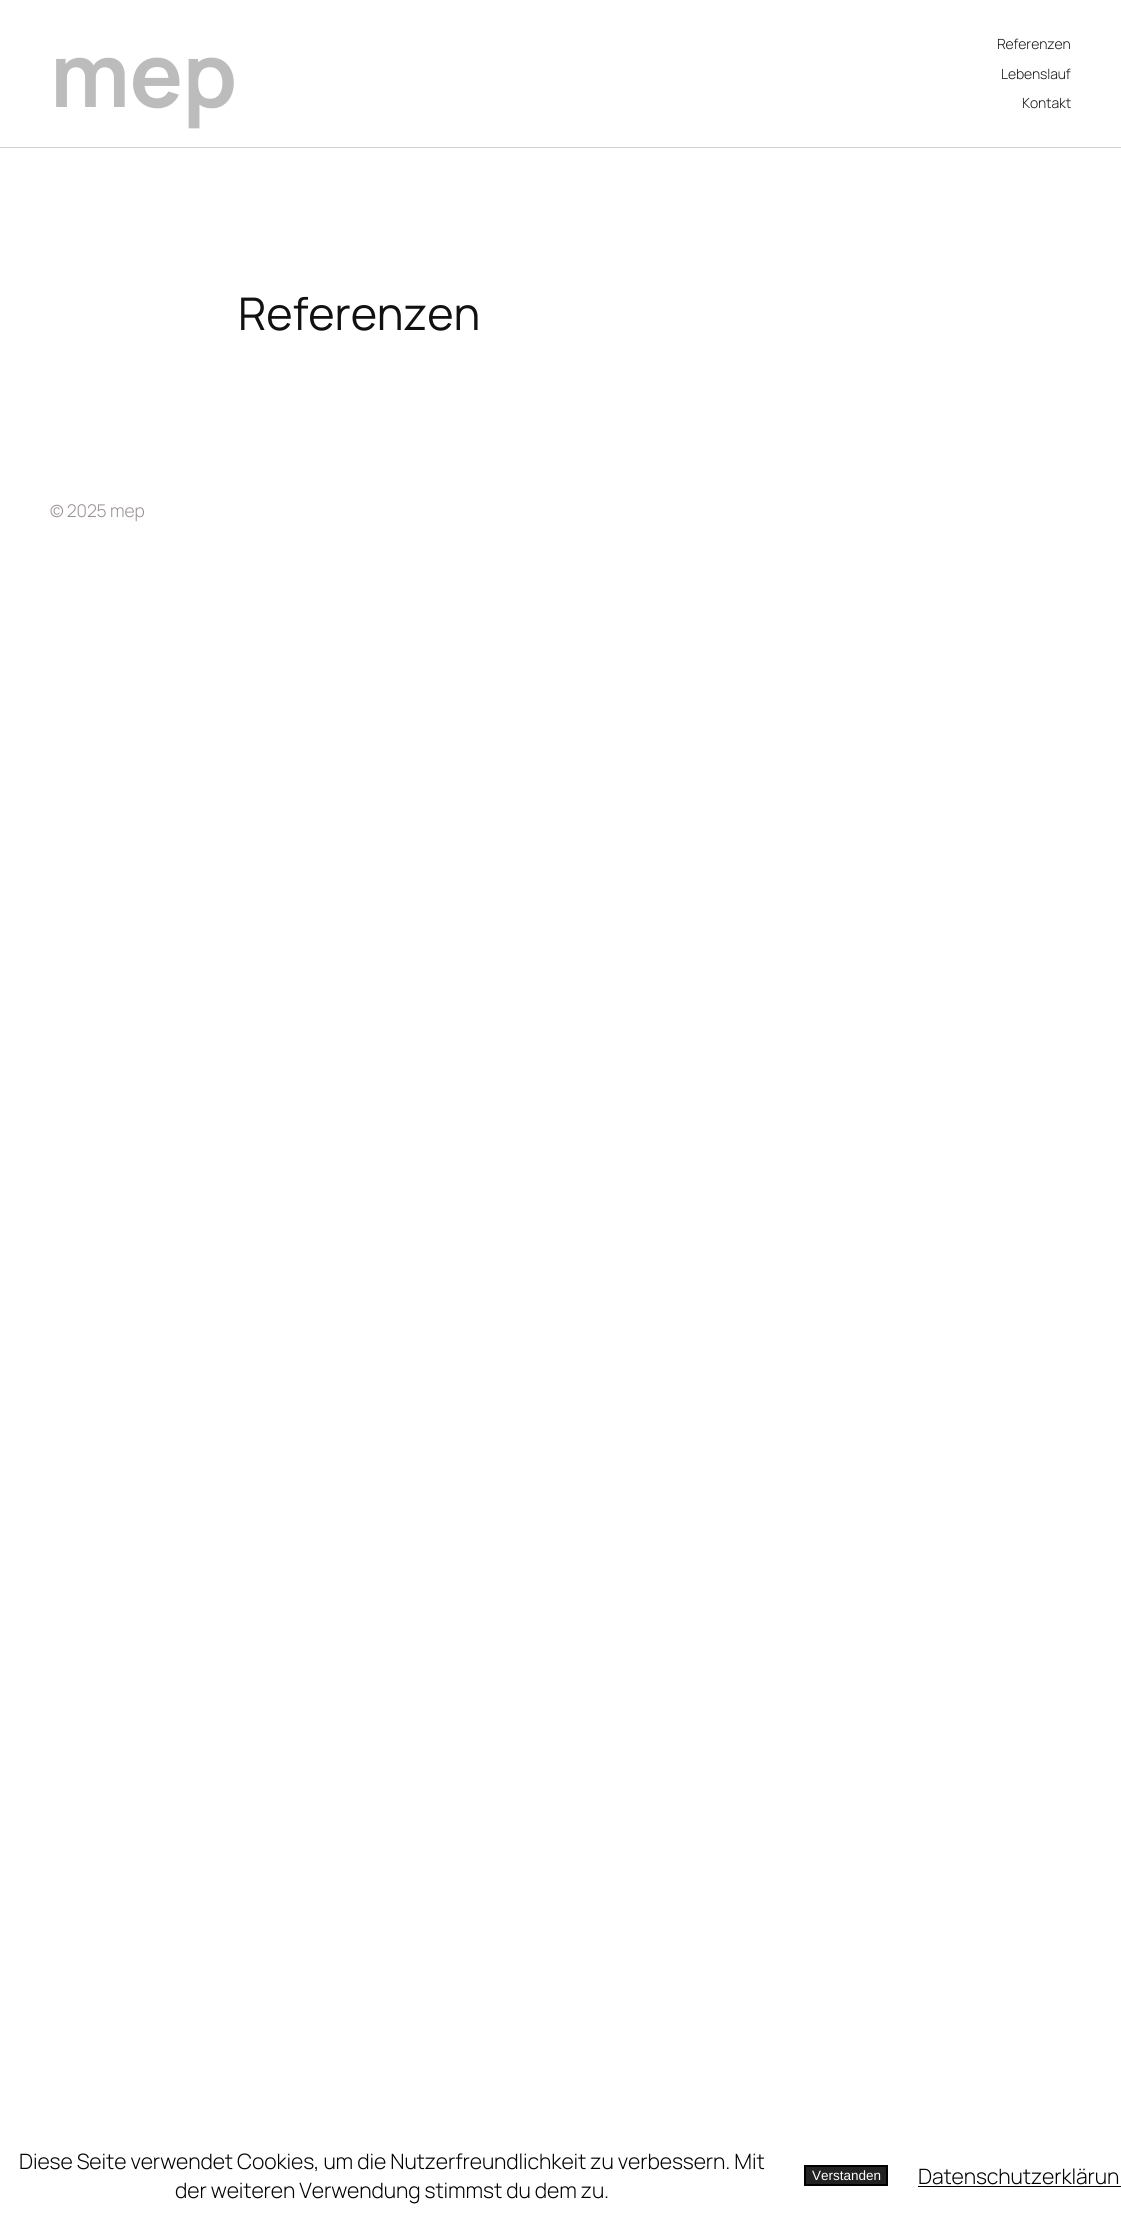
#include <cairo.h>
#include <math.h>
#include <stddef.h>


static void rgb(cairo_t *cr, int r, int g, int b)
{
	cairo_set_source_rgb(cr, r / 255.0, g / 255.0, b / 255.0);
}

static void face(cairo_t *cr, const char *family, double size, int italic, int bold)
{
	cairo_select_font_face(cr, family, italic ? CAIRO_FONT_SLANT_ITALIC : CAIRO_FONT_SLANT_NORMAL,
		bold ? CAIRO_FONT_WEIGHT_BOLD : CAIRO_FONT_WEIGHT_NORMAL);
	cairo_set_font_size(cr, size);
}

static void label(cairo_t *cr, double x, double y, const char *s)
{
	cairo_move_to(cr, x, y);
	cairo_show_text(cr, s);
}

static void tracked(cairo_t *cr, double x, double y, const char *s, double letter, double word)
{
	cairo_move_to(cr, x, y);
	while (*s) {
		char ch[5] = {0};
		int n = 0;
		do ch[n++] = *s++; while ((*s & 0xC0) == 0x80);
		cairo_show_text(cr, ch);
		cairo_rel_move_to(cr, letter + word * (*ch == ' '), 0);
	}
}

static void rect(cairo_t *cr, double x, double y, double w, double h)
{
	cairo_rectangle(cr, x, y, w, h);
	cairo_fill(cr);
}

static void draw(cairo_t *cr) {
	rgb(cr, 255, 255, 255);
	cairo_paint(cr);
	rgb(cr, 207, 207, 207);
	rect(cr, 0, 147, 1121, 1);
	face(cr, "Manrope", 89, 0, 1);
	rgb(cr, 188, 188, 188);
	tracked(cr, 50, 107, "mep", -0.5, 0);
	face(cr, "Manrope Light", 14, 0, 0);
	rgb(cr, 17, 17, 17);
	tracked(cr, 997, 49, "Referenzen", -0.1, 0);
	tracked(cr, 1001, 79, "Lebenslauf", -0.1, 0);
	tracked(cr, 1022, 108, "Kontakt", -0.1, 0);
	face(cr, "Manrope", 45, 0, 0);
	tracked(cr, 238, 330, "Referenzen", -0.1, 0);
	face(cr, "Manrope Light", 17.5, 0, 0);
	rgb(cr, 151, 144, 144);
	tracked(cr, 50, 517, "© 2025 mep", -0.1, 0);
	face(cr, "Manrope Light", 21.15, 0, 0);
	rgb(cr, 0, 0, 0);
	tracked(cr, 19, 2169, "Diese Seite verwendet Cookies, um die Nutzerfreundlichkeit zu verbessern. Mit", -0.1, 0);
	tracked(cr, 175, 2198, "der weiteren Verwendung stimmst du dem zu.", -0.1, 0);
	rgb(cr, 34, 34, 34);
	cairo_rectangle(cr, 805, 2166, 82, 19);
	cairo_fill_preserve(cr);
	rgb(cr, 0, 0, 0);
	cairo_stroke(cr);
	face(cr, "Liberation Sans", 13.5, 0, 0);
	rgb(cr, 255, 255, 255);
	label(cr, 812, 2180, "Verstanden");
	face(cr, "Manrope Light", 21.15, 0, 0);
	rgb(cr, 0, 0, 0);
	tracked(cr, 918, 2184, "Datenschutzerklärun", -0.1, 0);
	rect(cr, 918, 2186, 203, 1);
}

int main(void) {
	cairo_surface_t *surface = cairo_image_surface_create(CAIRO_FORMAT_RGB24, 1121, 2225);
	cairo_t *cr = cairo_create(surface);
	cairo_font_options_t *options = cairo_font_options_create();
	cairo_font_options_set_hint_metrics(options, CAIRO_HINT_METRICS_OFF);
	cairo_font_options_set_hint_style(options, CAIRO_HINT_STYLE_NONE);
	cairo_set_font_options(cr, options);
	cairo_set_miter_limit(cr, 4);
	draw(cr);
	cairo_surface_write_to_png(surface, "render.png");
	cairo_font_options_destroy(options);
	cairo_destroy(cr);
	cairo_surface_destroy(surface);
	return 0;
}
